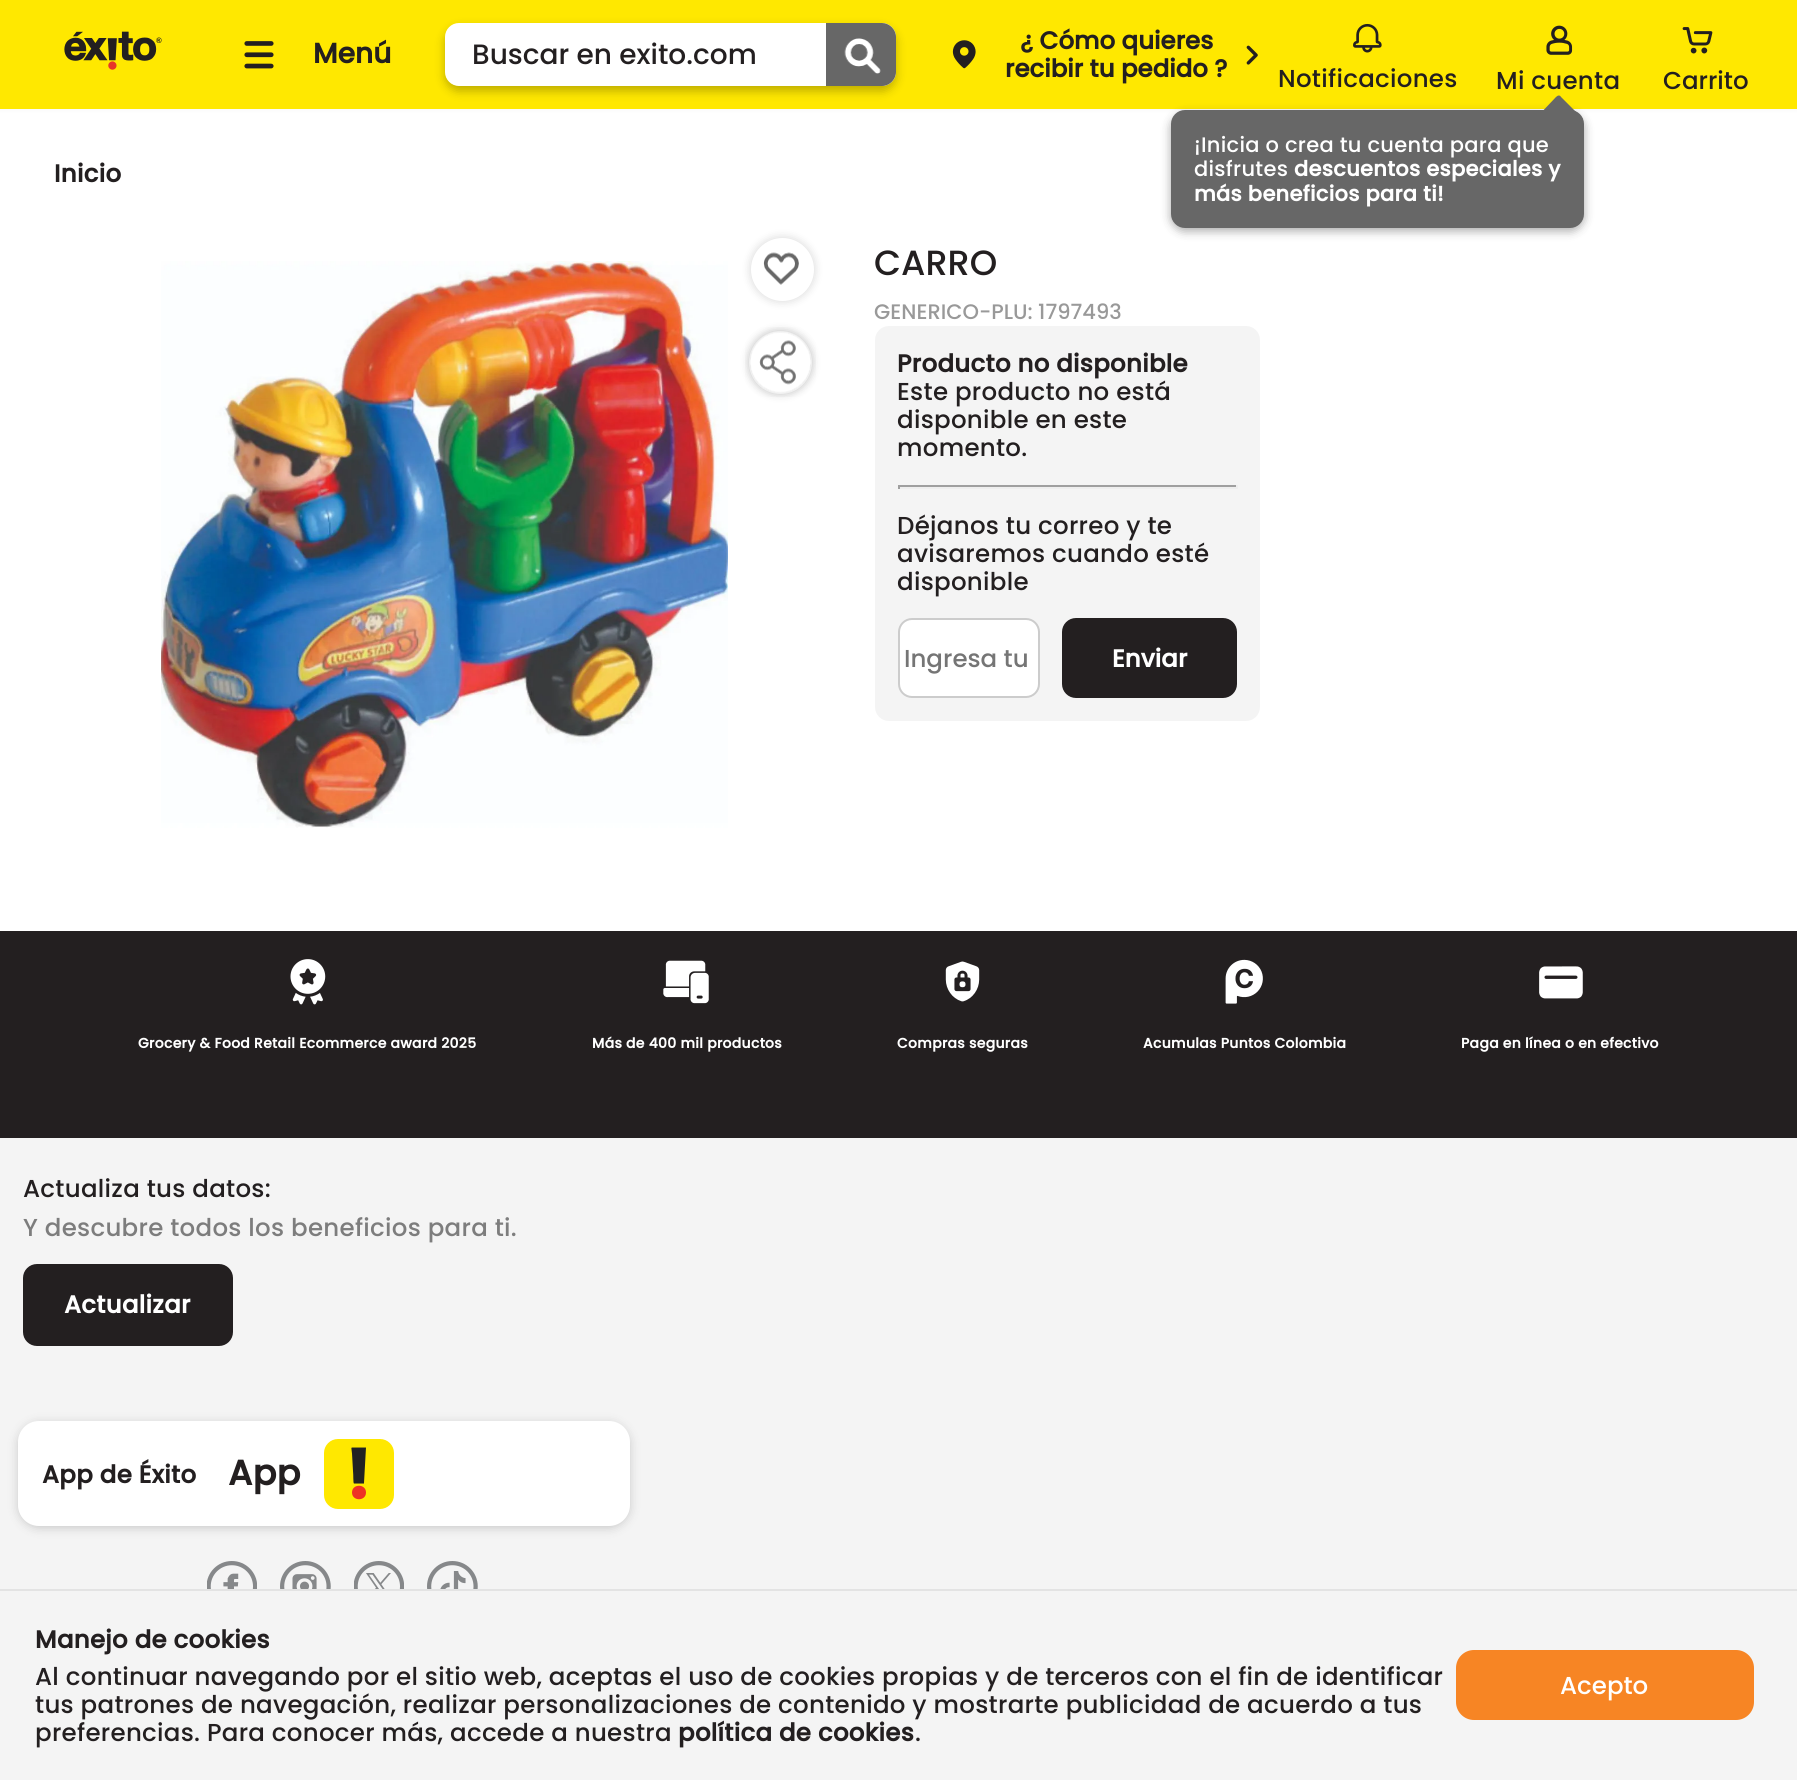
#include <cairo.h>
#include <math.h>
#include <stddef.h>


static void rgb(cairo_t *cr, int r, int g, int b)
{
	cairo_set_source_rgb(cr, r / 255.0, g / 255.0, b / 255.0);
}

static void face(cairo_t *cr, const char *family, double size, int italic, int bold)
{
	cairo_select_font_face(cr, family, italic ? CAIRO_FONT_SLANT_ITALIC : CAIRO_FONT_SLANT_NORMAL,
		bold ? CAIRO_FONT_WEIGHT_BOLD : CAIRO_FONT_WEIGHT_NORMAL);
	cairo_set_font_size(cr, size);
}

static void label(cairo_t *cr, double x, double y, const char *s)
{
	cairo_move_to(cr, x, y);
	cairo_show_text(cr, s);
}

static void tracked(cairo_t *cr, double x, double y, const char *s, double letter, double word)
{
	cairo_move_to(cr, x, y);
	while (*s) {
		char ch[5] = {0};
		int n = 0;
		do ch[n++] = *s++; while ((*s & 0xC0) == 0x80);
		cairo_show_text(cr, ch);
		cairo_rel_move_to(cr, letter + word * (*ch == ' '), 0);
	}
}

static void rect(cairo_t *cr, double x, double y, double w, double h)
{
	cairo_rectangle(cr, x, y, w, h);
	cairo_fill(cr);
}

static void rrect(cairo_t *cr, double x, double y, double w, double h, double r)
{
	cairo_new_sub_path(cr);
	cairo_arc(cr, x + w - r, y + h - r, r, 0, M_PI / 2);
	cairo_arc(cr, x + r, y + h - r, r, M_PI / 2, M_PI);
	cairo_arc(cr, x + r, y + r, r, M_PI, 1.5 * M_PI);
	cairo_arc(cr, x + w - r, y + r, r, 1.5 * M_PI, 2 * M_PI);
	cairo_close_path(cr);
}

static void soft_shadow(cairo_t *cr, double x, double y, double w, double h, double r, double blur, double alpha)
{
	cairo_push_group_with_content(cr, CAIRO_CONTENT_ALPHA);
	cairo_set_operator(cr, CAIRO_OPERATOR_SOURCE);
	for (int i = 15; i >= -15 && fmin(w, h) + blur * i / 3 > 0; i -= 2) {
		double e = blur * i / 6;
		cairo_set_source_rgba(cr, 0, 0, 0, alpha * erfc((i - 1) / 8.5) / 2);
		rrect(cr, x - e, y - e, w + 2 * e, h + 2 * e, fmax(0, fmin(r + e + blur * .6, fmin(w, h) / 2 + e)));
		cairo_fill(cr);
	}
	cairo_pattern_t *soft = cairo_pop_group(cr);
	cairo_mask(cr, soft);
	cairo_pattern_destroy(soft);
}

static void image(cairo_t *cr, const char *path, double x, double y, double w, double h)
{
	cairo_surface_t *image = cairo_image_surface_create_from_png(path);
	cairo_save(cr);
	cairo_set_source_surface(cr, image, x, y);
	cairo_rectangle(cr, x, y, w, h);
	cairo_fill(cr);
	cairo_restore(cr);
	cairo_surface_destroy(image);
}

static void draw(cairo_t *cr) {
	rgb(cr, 255, 255, 255);
	cairo_paint(cr);
	rgb(cr, 0, 0, 0);
	soft_shadow(cr, 0, 0, 1797, 109, 0, 2.5, 0.05);
	rgb(cr, 255, 232, 0);
	rect(cr, 0, 0, 1797, 109);
	image(cr, "image0.png", 64, 31, 98, 39);
	image(cr, "image1.png", 244, 41, 30, 28);
	face(cr, "Poppins", 28, 0, 1);
	rgb(cr, 35, 31, 32);
	label(cr, 313, 63, "Menú");
	rgb(cr, 255, 255, 255);
	rrect(cr, 445, 23, 451, 63, 14);
	cairo_fill(cr);
	cairo_save(cr);
	cairo_set_fill_rule(cr, CAIRO_FILL_RULE_EVEN_ODD);
	cairo_new_path(cr);
	cairo_move_to(cr, 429, 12);
	cairo_line_to(cr, 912, 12);
	cairo_line_to(cr, 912, 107);
	cairo_line_to(cr, 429, 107);
	cairo_close_path(cr);
	cairo_move_to(cr, 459, 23);
	cairo_line_to(cr, 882, 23);
	cairo_curve_to(cr, 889.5, 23, 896, 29.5, 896, 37);
	cairo_line_to(cr, 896, 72);
	cairo_curve_to(cr, 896, 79.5, 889.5, 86, 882, 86);
	cairo_line_to(cr, 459, 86);
	cairo_curve_to(cr, 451.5, 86, 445, 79.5, 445, 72);
	cairo_line_to(cr, 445, 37);
	cairo_curve_to(cr, 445, 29.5, 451.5, 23, 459, 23);
	cairo_close_path(cr);
	cairo_clip(cr);
	rgb(cr, 0, 0, 0);
	soft_shadow(cr, 445, 28, 451, 63, 14, 5, 0.26);
	cairo_restore(cr);
	face(cr, "Poppins Medium", 28, 0, 0);
	rgb(cr, 35, 31, 32);
	label(cr, 472, 64, "Buscar en exito.com");
	rgb(cr, 103, 103, 103);
	cairo_new_path(cr);
	cairo_move_to(cr, 826, 23);
	cairo_line_to(cr, 882, 23);
	cairo_curve_to(cr, 889.5, 23, 896, 29.5, 896, 37);
	cairo_line_to(cr, 896, 72);
	cairo_curve_to(cr, 896, 79.5, 889.5, 86, 882, 86);
	cairo_line_to(cr, 826, 86);
	cairo_close_path(cr);
	cairo_fill(cr);
	image(cr, "image2.png", 844, 38, 37, 36);
	image(cr, "image3.png", 952, 40, 24, 29);
	face(cr, "Poppins", 24.5, 0, 1);
	rgb(cr, 35, 31, 32);
	label(cr, 1020, 49, "¿ Cómo quieres");
	label(cr, 1005, 77, "recibir tu pedido ?");
	image(cr, "image4.png", 1246, 45, 12, 20);
	image(cr, "image5.png", 1353, 23, 29, 30);
	face(cr, "Poppins Medium", 24.5, 0, 0);
	tracked(cr, 1278, 87, "Notificaciones", 0.28, 0);
	image(cr, "image6.png", 1546, 25, 27, 30);
	tracked(cr, 1496, 89, "Mi cuenta", 0.28, 0);
	rgb(cr, 0, 0, 0);
	soft_shadow(cr, 1171, 114, 413, 117, 14, 5, 0.34);
	rgb(cr, 103, 103, 103);
	rrect(cr, 1171, 110, 413, 118, 14);
	cairo_fill(cr);
	face(cr, "Poppins Medium", 21, 0, 0);
	rgb(cr, 255, 255, 255);
	tracked(cr, 1194, 152, "¡Inicia o crea tu cuenta para que", 0.28, 0);
	rgb(cr, 103, 103, 103);
	cairo_new_path(cr);
	cairo_move_to(cr, 1561, 97);
	cairo_line_to(cr, 1581, 117);
	cairo_curve_to(cr, 1583, 118, 1583, 120, 1581, 122);
	cairo_line_to(cr, 1561, 141);
	cairo_curve_to(cr, 1560, 143, 1558, 143, 1556, 141);
	cairo_line_to(cr, 1537, 122);
	cairo_curve_to(cr, 1535, 120, 1535, 118, 1537, 117);
	cairo_line_to(cr, 1556, 97);
	cairo_curve_to(cr, 1558, 95, 1560, 95, 1561, 97);
	cairo_close_path(cr);
	cairo_fill(cr);
	rgb(cr, 255, 255, 255);
	tracked(cr, 1194, 176, "disfrutes", 0.28, 0);
	face(cr, "Poppins", 21, 0, 1);
	tracked(cr, 1294, 176, "descuentos especiales y", 0.28, 0);
	tracked(cr, 1194, 201, "más beneficios para ti!", 0.28, 0);
	image(cr, "image7.png", 1682, 27, 31, 27);
	face(cr, "Poppins Medium", 24.5, 0, 0);
	rgb(cr, 35, 31, 32);
	label(cr, 1663, 89, "Carrito");
	face(cr, "Poppins", 24.5, 0, 1);
	tracked(cr, 54, 182, "Inicio", 0.28, 0);
	image(cr, "image8.png", 161, 261, 567, 567);
	rgb(cr, 0, 0, 0);
	soft_shadow(cr, 751, 238, 63, 63, 31.5, 5, 0.16);
	rgb(cr, 255, 255, 255);
	cairo_arc(cr, 782.5, 269.5, 31.5, 0, 2 * M_PI);
	cairo_fill(cr);
	image(cr, "image9.png", 763, 252, 36, 33);
	rgb(cr, 0, 0, 0);
	soft_shadow(cr, 749, 331, 63, 63, 31.5, 5, 0.16);
	rgb(cr, 255, 255, 255);
	cairo_arc(cr, 780.5, 362.5, 31.5, 0, 2 * M_PI);
	cairo_fill(cr);
	image(cr, "image10.png", 745, 327, 71, 70);
	face(cr, "Poppins Medium", 35, 0, 0);
	rgb(cr, 35, 31, 32);
	label(cr, 874, 275, "CARRO");
	face(cr, "Poppins Medium", 21, 0, 0);
	rgb(cr, 153, 153, 153);
	label(cr, 874, 319, "GENERICO-PLU: 1797493");
	rgb(cr, 244, 244, 244);
	rrect(cr, 875, 326, 385, 395, 14);
	cairo_fill(cr);
	face(cr, "Poppins", 24.5, 0, 1);
	rgb(cr, 35, 31, 32);
	tracked(cr, 897, 372, "Producto no disponible", 0.28, 0);
	face(cr, "Poppins Medium", 24.5, 0, 0);
	tracked(cr, 897, 400, "Este producto no está", 0.28, 0);
	tracked(cr, 897, 428, "disponible en este", 0.28, 0);
	tracked(cr, 897, 456, "momento.", 0.28, 0);
	rgb(cr, 159, 159, 159);
	rect(cr, 898, 485, 339, 2);
	rgb(cr, 238, 238, 238);
	rect(cr, 1236, 485, 2, 4);
	rect(cr, 898, 487, 339, 2);
	rgb(cr, 159, 159, 159);
	rect(cr, 898, 485, 2, 4);
	rgb(cr, 35, 31, 32);
	tracked(cr, 897, 534, "Déjanos tu correo y te", 0.28, 0);
	tracked(cr, 897, 562, "avisaremos cuando esté", 0.28, 0);
	tracked(cr, 897, 590, "disponible", 0.28, 0);
	rgb(cr, 255, 255, 255);
	rrect(cr, 899, 619, 140, 78, 13);
	cairo_fill_preserve(cr);
	rgb(cr, 204, 204, 204);
	cairo_stroke(cr);
	rgb(cr, 117, 117, 117);
	label(cr, 904, 667, "Ingresa tu");
	rgb(cr, 35, 31, 32);
	rrect(cr, 1062, 618, 175, 80, 14);
	cairo_fill(cr);
	face(cr, "Poppins", 24.5, 0, 1);
	rgb(cr, 255, 255, 255);
	label(cr, 1112, 667, "Enviar");
	rgb(cr, 35, 31, 32);
	rect(cr, 0, 931, 1797, 207);
	image(cr, "image11.png", 290, 959, 36, 46);
	face(cr, "Poppins", 14, 0, 1);
	rgb(cr, 255, 255, 255);
	tracked(cr, 138, 1048, "Grocery & Food Retail Ecommerce award 2025", 0.28, 0);
	image(cr, "image12.png", 663, 960, 46, 44);
	tracked(cr, 592, 1048, "Más de 400 mil productos", 0.28, 0);
	image(cr, "image13.png", 945, 961, 35, 41);
	tracked(cr, 897, 1048, "Compras seguras", 0.28, 0);
	image(cr, "image14.png", 1225, 959, 38, 45);
	tracked(cr, 1143, 1048, "Acumulas Puntos Colombia", 0.28, 0);
	image(cr, "image15.png", 1539, 966, 44, 33);
	tracked(cr, 1461, 1048, "Paga en línea o en efectivo", 0.28, 0);
	rgb(cr, 244, 244, 244);
	rect(cr, 0, 1138, 1797, 451);
	face(cr, "Poppins Medium", 24.5, 0, 0);
	rgb(cr, 35, 31, 32);
	tracked(cr, 23, 1197, "Actualiza tus datos:", 0.28, 0);
	rgb(cr, 125, 125, 125);
	tracked(cr, 23, 1236, "Y descubre todos los beneficios para ti.", 0.28, 0);
	rgb(cr, 35, 31, 32);
	rrect(cr, 23, 1264, 210, 82, 14);
	cairo_fill(cr);
	face(cr, "Poppins", 24.5, 0, 1);
	rgb(cr, 255, 255, 255);
	tracked(cr, 64, 1313, "Actualizar", 0.28, 0);
	rgb(cr, 46, 46, 46);
	soft_shadow(cr, 18, 1423, 612, 105, 21, 5, 0.22);
	rgb(cr, 255, 255, 255);
	rrect(cr, 18, 1421, 612, 105, 21);
	cairo_fill(cr);
	rgb(cr, 35, 31, 32);
	tracked(cr, 42, 1483, "App de Éxito", 0.28, 0);
	face(cr, "Poppins", 35, 0, 1);
	tracked(cr, 228, 1485, "App", 0.28, 0);
	rgb(cr, 255, 232, 0);
	rrect(cr, 324, 1439, 70, 70, 14);
	cairo_fill(cr);
	rgb(cr, 238, 49, 36);
	cairo_new_path(cr);
	cairo_move_to(cr, 366, 1492.5);
	cairo_curve_to(cr, 366, 1483.5, 352, 1483.5, 352, 1492.5);
	cairo_curve_to(cr, 352, 1501.5, 366, 1501.5, 366, 1492.5);
	cairo_fill(cr);
	rgb(cr, 34, 34, 34);
	cairo_new_path(cr);
	cairo_move_to(cr, 354, 1483.5);
	cairo_curve_to(cr, 353, 1483.5, 353.5, 1474.5, 353, 1471);
	cairo_line_to(cr, 352, 1453.5);
	cairo_curve_to(cr, 351.5, 1447, 350, 1447.5, 354.5, 1447.5);
	cairo_line_to(cr, 366, 1447.5);
	cairo_line_to(cr, 364, 1483);
	cairo_line_to(cr, 364, 1483.5);
	cairo_close_path(cr);
	cairo_fill(cr);
	image(cr, "image16.png", 207, 1561, 50, 28);
	image(cr, "image17.png", 280, 1561, 51, 28);
	image(cr, "image18.png", 354, 1561, 50, 28);
	image(cr, "image19.png", 427, 1561, 51, 28);
	rgb(cr, 244, 244, 244);
	rect(cr, 0, 1591, 1797, 189);
	rgb(cr, 227, 227, 227);
	rect(cr, 0, 1589, 1797, 2);
	face(cr, "Poppins", 24.5, 0, 1);
	rgb(cr, 35, 31, 32);
	tracked(cr, 35, 1648, "Manejo de cookies", 0.28, 0);
	face(cr, "Poppins Medium", 24.5, 0, 0);
	tracked(cr, 35, 1685, "Al continuar navegando por el sitio web, aceptas el uso de cookies propias y de terceros con el fin de identificar", 0.28, 0);
	tracked(cr, 35, 1713, "tus patrones de navegación, realizar personalizaciones de contenido y mostrarte publicidad de acuerdo a tus", 0.28, 0);
	tracked(cr, 35, 1741, "preferencias. Para conocer más, accede a nuestra", 0.28, 0);
	face(cr, "Poppins", 24.5, 0, 1);
	tracked(cr, 678, 1741, "política de cookies", 0.28, 0);
	face(cr, "Poppins Medium", 24.5, 0, 0);
	tracked(cr, 915, 1741, ".", 0.28, 0);
	rgb(cr, 247, 133, 36);
	rrect(cr, 1456, 1650, 298, 70, 18);
	cairo_fill(cr);
	rgb(cr, 255, 255, 255);
	label(cr, 1560, 1694, "Acepto");
}

int main(void) {
	cairo_surface_t *surface = cairo_image_surface_create(CAIRO_FORMAT_RGB24, 1797, 1780);
	cairo_t *cr = cairo_create(surface);
	cairo_font_options_t *options = cairo_font_options_create();
	cairo_font_options_set_hint_metrics(options, CAIRO_HINT_METRICS_OFF);
	cairo_font_options_set_hint_style(options, CAIRO_HINT_STYLE_NONE);
	cairo_set_font_options(cr, options);
	cairo_set_miter_limit(cr, 4);
	draw(cr);
	cairo_surface_write_to_png(surface, "render.png");
	cairo_font_options_destroy(options);
	cairo_destroy(cr);
	cairo_surface_destroy(surface);
	return 0;
}
